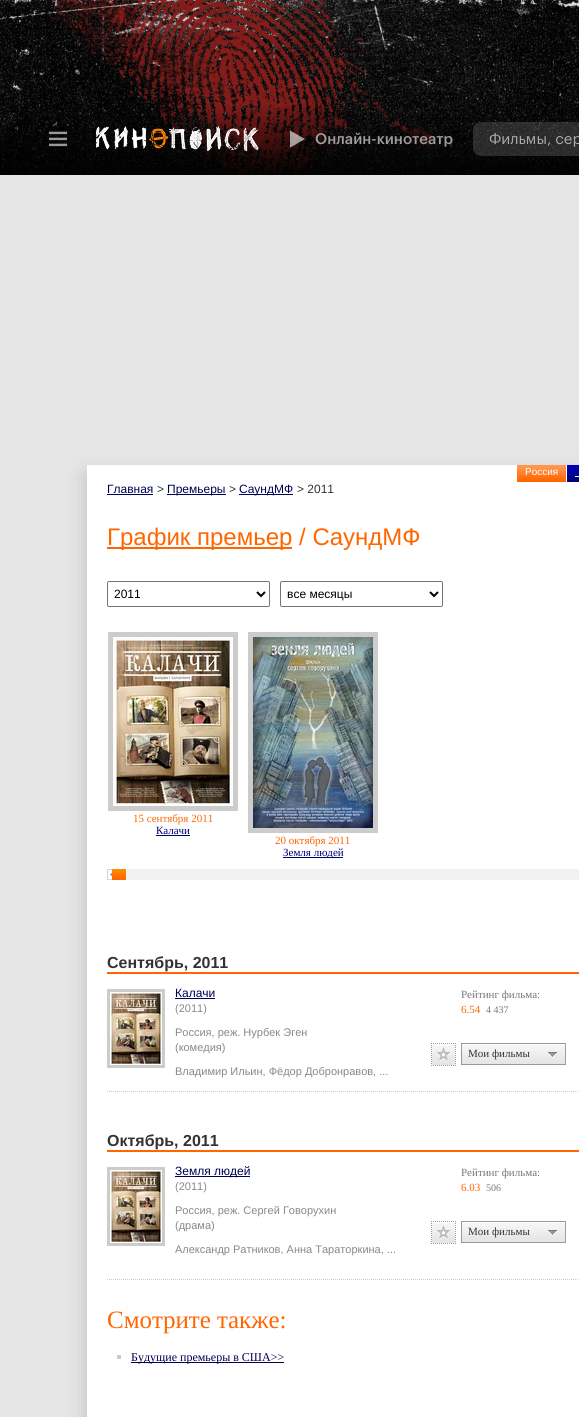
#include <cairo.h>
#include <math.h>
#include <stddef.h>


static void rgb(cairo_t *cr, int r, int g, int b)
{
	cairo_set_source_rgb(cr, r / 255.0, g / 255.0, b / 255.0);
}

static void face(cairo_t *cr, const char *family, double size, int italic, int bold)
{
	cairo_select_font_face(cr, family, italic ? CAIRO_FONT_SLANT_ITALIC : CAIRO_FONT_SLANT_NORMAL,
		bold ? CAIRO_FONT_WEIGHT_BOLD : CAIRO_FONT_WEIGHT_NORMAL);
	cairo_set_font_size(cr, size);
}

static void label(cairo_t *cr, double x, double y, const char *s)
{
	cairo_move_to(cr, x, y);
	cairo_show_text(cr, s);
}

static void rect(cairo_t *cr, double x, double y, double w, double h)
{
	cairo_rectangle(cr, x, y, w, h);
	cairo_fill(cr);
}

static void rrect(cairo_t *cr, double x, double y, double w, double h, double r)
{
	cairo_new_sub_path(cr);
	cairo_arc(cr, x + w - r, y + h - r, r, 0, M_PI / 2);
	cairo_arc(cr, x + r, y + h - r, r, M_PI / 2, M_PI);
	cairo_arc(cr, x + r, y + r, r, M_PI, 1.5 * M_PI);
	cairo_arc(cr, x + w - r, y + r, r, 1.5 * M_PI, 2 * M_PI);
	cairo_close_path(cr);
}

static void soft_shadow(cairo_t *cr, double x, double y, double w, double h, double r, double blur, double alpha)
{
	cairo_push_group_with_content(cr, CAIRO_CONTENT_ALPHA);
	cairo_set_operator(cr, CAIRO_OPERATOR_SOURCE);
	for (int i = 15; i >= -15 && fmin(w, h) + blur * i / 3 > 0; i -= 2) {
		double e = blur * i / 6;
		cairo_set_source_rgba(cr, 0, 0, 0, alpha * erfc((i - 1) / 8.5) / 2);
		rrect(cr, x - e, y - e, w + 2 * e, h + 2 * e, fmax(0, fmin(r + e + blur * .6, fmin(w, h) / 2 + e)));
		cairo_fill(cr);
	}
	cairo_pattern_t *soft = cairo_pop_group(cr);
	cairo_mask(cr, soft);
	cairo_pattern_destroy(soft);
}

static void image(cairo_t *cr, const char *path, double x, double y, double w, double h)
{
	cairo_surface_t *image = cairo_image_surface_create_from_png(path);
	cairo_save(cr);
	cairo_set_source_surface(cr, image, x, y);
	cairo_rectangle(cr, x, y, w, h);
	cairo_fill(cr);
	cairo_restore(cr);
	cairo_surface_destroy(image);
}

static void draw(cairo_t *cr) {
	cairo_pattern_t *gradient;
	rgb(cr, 230, 230, 230);
	cairo_paint(cr);
	image(cr, "image0.png", 0, 0, 579, 175);
	image(cr, "image1.png", 49, 131, 18, 16);
	image(cr, "image2.png", 96, 126, 163, 26);
	image(cr, "image3.png", 290, 130, 15, 18);
	face(cr, "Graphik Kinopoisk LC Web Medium", 15, 0, 0);
	rgb(cr, 159, 157, 157);
	label(cr, 315, 144, "Онлайн-кинотеатр");
	cairo_set_source_rgba(cr, 1, 1, 1, 0.15);
	rrect(cr, 473, 122, 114, 34, 8);
	cairo_fill(cr);
	face(cr, "Graphik Kinopoisk LC Web", 15, 0, 0);
	gradient = cairo_pattern_create_linear(489, 139, 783, 139);
	cairo_pattern_add_color_stop_rgba(gradient, 0.7, 0.671, 0.671, 0.671, 1);
	cairo_pattern_add_color_stop_rgba(gradient, 1, 0.173, 0.173, 0.173, 1);
	cairo_set_source(cr, gradient);
	cairo_pattern_destroy(gradient);
	label(cr, 489, 144, "Фильмы, сер");
	rgb(cr, 0, 0, 0);
	soft_shadow(cr, 87, 475, 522, 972, 0, 10, 0.2);
	rgb(cr, 255, 255, 255);
	rect(cr, 87, 465, 492, 952);
	rgb(cr, 255, 102, 0);
	rect(cr, 517, 480, 49, 2);
	image(cr, "image4.png", 517, 465, 49, 15);
	face(cr, "Liberation Sans", 10, 0, 0);
	rgb(cr, 255, 255, 255);
	label(cr, 525, 475, "Россия");
	rgb(cr, 0, 0, 119);
	rect(cr, 567, 481, 12, 1);
	image(cr, "image5.png", 567, 465, 12, 16);
	rgb(cr, 255, 255, 255);
	rect(cr, 575, 476, 4, 1);
	face(cr, "Liberation Sans", 12, 0, 0);
	rgb(cr, 0, 0, 85);
	label(cr, 107, 493, "Главная");
	rect(cr, 107, 494, 46, 1);
	rgb(cr, 51, 51, 51);
	label(cr, 157, 493, ">");
	rgb(cr, 0, 0, 85);
	rect(cr, 167, 494, 59, 1);
	label(cr, 167, 493, "Премьеры");
	rgb(cr, 51, 51, 51);
	label(cr, 229, 493, ">");
	rgb(cr, 0, 0, 85);
	rect(cr, 239, 494, 54, 1);
	label(cr, 239, 493, "СаундМФ");
	rgb(cr, 51, 51, 51);
	label(cr, 297, 493, "> 2011");
	rgb(cr, 255, 102, 0);
	rect(cr, 107, 547, 185, 2);
	face(cr, "Liberation Sans", 24, 0, 0);
	label(cr, 107, 545, "График премьер / СаундМФ");
	rrect(cr, 107.5, 581.5, 162, 25, 1.5);
	rgb(cr, 118, 118, 118);
	cairo_set_line_width(cr, 1);
	cairo_stroke(cr);
	cairo_new_path(cr);
	cairo_move_to(cr, 257, 592);
	cairo_line_to(cr, 261, 596);
	cairo_line_to(cr, 265, 592);
	rgb(cr, 0, 0, 0);
	cairo_set_line_width(cr, 2);
	cairo_stroke(cr);
	face(cr, "Liberation Sans", 12, 0, 0);
	label(cr, 114, 598, "2011");
	rrect(cr, 280.5, 581.5, 162, 25, 1.5);
	rgb(cr, 118, 118, 118);
	cairo_set_line_width(cr, 1);
	cairo_stroke(cr);
	cairo_new_path(cr);
	cairo_move_to(cr, 430, 592);
	cairo_line_to(cr, 434, 596);
	cairo_line_to(cr, 438, 592);
	rgb(cr, 0, 0, 0);
	cairo_set_line_width(cr, 2);
	cairo_stroke(cr);
	label(cr, 287, 598, "все месяцы");
	cairo_rectangle(cr, 110.5, 634.5, 125, 174);
	rgb(cr, 204, 204, 204);
	cairo_set_line_width(cr, 5);
	cairo_stroke(cr);
	image(cr, "image6.png", 113, 637, 120, 169);
	face(cr, "Liberation Serif", 11, 0, 0);
	rgb(cr, 255, 102, 0);
	label(cr, 133, 822, "15 сентября 2011");
	rgb(cr, 0, 0, 119);
	label(cr, 156, 834, "Калачи");
	rect(cr, 156, 835, 34, 1);
	cairo_rectangle(cr, 250.5, 634.5, 125, 196);
	rgb(cr, 204, 204, 204);
	cairo_stroke(cr);
	image(cr, "image7.png", 253, 637, 120, 191);
	rgb(cr, 255, 102, 0);
	label(cr, 275, 844, "20 октября 2011");
	rgb(cr, 0, 0, 119);
	rect(cr, 283, 857, 60, 1);
	label(cr, 283, 856, "Земля людей");
	image(cr, "image8.png", 107, 869, 5, 11);
	rgb(cr, 242, 242, 242);
	rect(cr, 126, 869, 453, 11);
	image(cr, "image9.png", 112, 869, 14, 11);
	rgb(cr, 255, 102, 0);
	rect(cr, 107, 972, 472, 2);
	face(cr, "Liberation Sans", 16, 0, 1);
	rgb(cr, 51, 51, 51);
	label(cr, 107, 968, "Сентябрь, 2011");
	cairo_new_path(cr);
	cairo_move_to(cr, 107, 1091.5);
	cairo_line_to(cr, 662, 1091.5);
	rgb(cr, 204, 204, 204);
	cairo_set_line_width(cr, 1);
	cairo_set_dash(cr, (double[]){1, 1}, 2, 0);
	cairo_stroke(cr);
	cairo_rectangle(cr, 108.5, 990.5, 55, 76);
	cairo_set_line_width(cr, 3);
	cairo_set_dash(cr, NULL, 0, 0);
	cairo_stroke(cr);
	image(cr, "image10.png", 110, 992, 52, 73);
	face(cr, "Liberation Sans", 12, 0, 0);
	rgb(cr, 0, 0, 85);
	label(cr, 175, 997, "Калачи");
	rect(cr, 175, 998, 40, 1);
	face(cr, "Liberation Sans", 11, 0, 0);
	rgb(cr, 136, 136, 136);
	label(cr, 175, 1012, "(2011)");
	label(cr, 175, 1036, "Россия, реж. Нурбек Эген");
	label(cr, 175, 1051, "(комедия)");
	label(cr, 175, 1075, "Владимир Ильин, Фёдор Добронравов, ...");
	face(cr, "Liberation Serif", 11, 0, 0);
	rgb(cr, 119, 119, 119);
	label(cr, 461, 998, "Рейтинг фильма:");
	rgb(cr, 255, 102, 0);
	label(cr, 461, 1013, "6.54");
	face(cr, "Liberation Serif", 10, 0, 0);
	rgb(cr, 119, 119, 119);
	label(cr, 486, 1013, "4 437");
	image(cr, "image11.png", 431, 1043, 25, 23);
	image(cr, "image12.png", 462, 1043, 104, 21);
	rgb(cr, 153, 153, 153);
	rect(cr, 461, 1064, 105, 1);
	rect(cr, 461, 1043, 1, 22);
	face(cr, "Liberation Serif", 11, 0, 0);
	rgb(cr, 51, 51, 51);
	label(cr, 468, 1057, "Мои фильмы");
	rgb(cr, 255, 102, 0);
	rect(cr, 107, 1150, 472, 2);
	face(cr, "Liberation Sans", 16, 0, 1);
	rgb(cr, 51, 51, 51);
	label(cr, 107, 1146, "Октябрь, 2011");
	cairo_new_path(cr);
	cairo_move_to(cr, 107, 1279.5);
	cairo_line_to(cr, 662, 1279.5);
	rgb(cr, 204, 204, 204);
	cairo_set_line_width(cr, 1);
	cairo_set_dash(cr, (double[]){1, 1}, 2, 0);
	cairo_stroke(cr);
	cairo_rectangle(cr, 108.5, 1168.5, 55, 76);
	cairo_set_line_width(cr, 3);
	cairo_set_dash(cr, NULL, 0, 0);
	cairo_stroke(cr);
	image(cr, "image10.png", 110, 1170, 52, 73);
	rgb(cr, 0, 0, 85);
	rect(cr, 175, 1176, 75, 1);
	face(cr, "Liberation Sans", 12, 0, 0);
	label(cr, 175, 1175, "Земля людей");
	face(cr, "Liberation Sans", 11, 0, 0);
	rgb(cr, 136, 136, 136);
	label(cr, 175, 1190, "(2011)");
	label(cr, 175, 1214, "Россия, реж. Сергей Говорухин");
	label(cr, 175, 1229, "(драма)");
	label(cr, 175, 1253, "Александр Ратников, Анна Тараторкина, ...");
	face(cr, "Liberation Serif", 11, 0, 0);
	rgb(cr, 119, 119, 119);
	label(cr, 461, 1176, "Рейтинг фильма:");
	rgb(cr, 255, 102, 0);
	label(cr, 461, 1191, "6.03");
	face(cr, "Liberation Serif", 10, 0, 0);
	rgb(cr, 119, 119, 119);
	label(cr, 486, 1191, "506");
	image(cr, "image11.png", 431, 1221, 25, 23);
	image(cr, "image12.png", 462, 1221, 104, 21);
	rgb(cr, 153, 153, 153);
	rect(cr, 461, 1242, 105, 1);
	rect(cr, 461, 1221, 1, 22);
	face(cr, "Liberation Serif", 11, 0, 0);
	rgb(cr, 51, 51, 51);
	label(cr, 468, 1235, "Мои фильмы");
	face(cr, "Liberation Serif", 25, 0, 0);
	rgb(cr, 255, 102, 0);
	label(cr, 107, 1328, "Смотрите также:");
	rgb(cr, 204, 204, 204);
	rect(cr, 117, 1355, 4, 4);
	rgb(cr, 0, 0, 85);
	rect(cr, 131, 1362, 153, 1);
	face(cr, "Liberation Serif", 12, 0, 0);
	label(cr, 131, 1361, "Будущие премьеры в США>>");
}

int main(void) {
	cairo_surface_t *surface = cairo_image_surface_create(CAIRO_FORMAT_RGB24, 579, 1417);
	cairo_t *cr = cairo_create(surface);
	cairo_font_options_t *options = cairo_font_options_create();
	cairo_font_options_set_hint_metrics(options, CAIRO_HINT_METRICS_OFF);
	cairo_font_options_set_hint_style(options, CAIRO_HINT_STYLE_NONE);
	cairo_set_font_options(cr, options);
	cairo_set_miter_limit(cr, 4);
	draw(cr);
	cairo_surface_write_to_png(surface, "render.png");
	cairo_font_options_destroy(options);
	cairo_destroy(cr);
	cairo_surface_destroy(surface);
	return 0;
}
